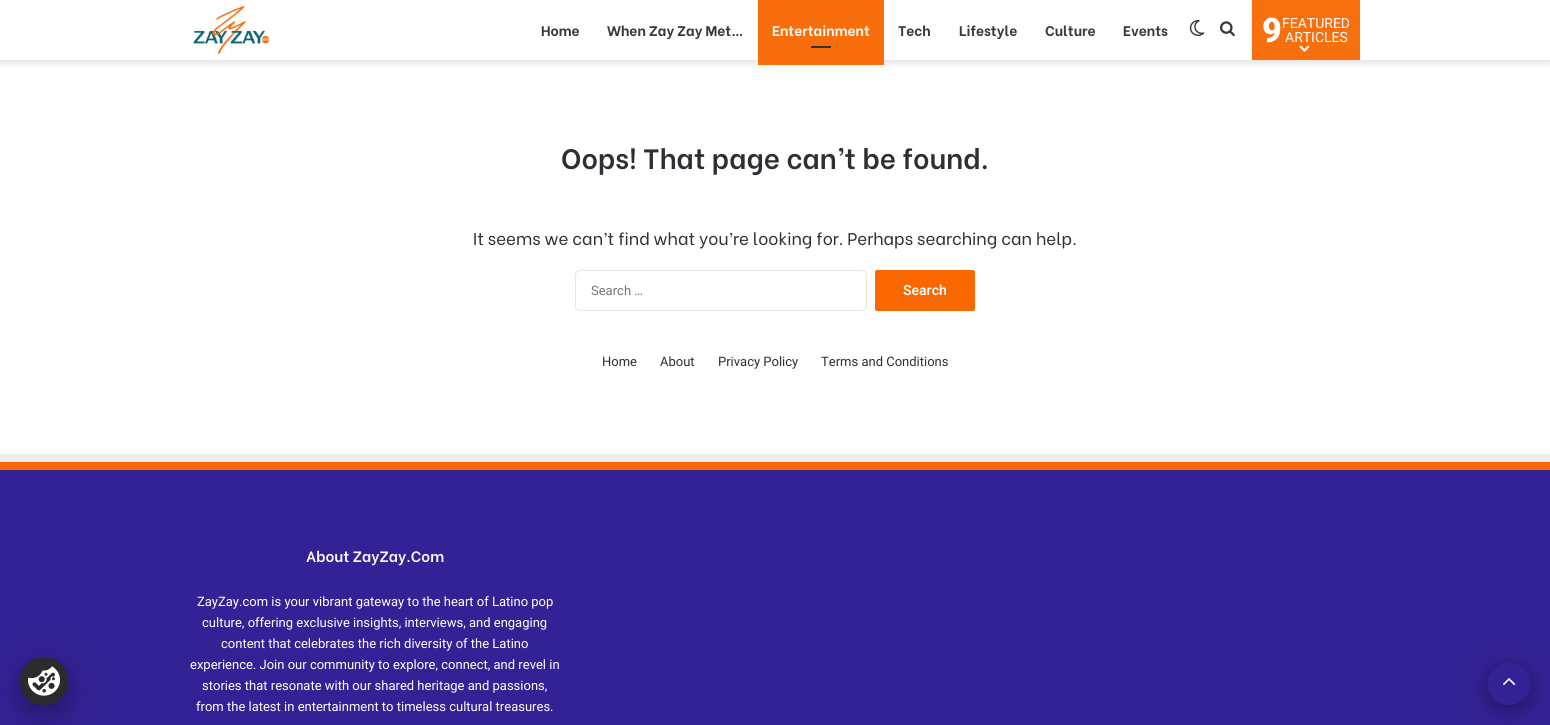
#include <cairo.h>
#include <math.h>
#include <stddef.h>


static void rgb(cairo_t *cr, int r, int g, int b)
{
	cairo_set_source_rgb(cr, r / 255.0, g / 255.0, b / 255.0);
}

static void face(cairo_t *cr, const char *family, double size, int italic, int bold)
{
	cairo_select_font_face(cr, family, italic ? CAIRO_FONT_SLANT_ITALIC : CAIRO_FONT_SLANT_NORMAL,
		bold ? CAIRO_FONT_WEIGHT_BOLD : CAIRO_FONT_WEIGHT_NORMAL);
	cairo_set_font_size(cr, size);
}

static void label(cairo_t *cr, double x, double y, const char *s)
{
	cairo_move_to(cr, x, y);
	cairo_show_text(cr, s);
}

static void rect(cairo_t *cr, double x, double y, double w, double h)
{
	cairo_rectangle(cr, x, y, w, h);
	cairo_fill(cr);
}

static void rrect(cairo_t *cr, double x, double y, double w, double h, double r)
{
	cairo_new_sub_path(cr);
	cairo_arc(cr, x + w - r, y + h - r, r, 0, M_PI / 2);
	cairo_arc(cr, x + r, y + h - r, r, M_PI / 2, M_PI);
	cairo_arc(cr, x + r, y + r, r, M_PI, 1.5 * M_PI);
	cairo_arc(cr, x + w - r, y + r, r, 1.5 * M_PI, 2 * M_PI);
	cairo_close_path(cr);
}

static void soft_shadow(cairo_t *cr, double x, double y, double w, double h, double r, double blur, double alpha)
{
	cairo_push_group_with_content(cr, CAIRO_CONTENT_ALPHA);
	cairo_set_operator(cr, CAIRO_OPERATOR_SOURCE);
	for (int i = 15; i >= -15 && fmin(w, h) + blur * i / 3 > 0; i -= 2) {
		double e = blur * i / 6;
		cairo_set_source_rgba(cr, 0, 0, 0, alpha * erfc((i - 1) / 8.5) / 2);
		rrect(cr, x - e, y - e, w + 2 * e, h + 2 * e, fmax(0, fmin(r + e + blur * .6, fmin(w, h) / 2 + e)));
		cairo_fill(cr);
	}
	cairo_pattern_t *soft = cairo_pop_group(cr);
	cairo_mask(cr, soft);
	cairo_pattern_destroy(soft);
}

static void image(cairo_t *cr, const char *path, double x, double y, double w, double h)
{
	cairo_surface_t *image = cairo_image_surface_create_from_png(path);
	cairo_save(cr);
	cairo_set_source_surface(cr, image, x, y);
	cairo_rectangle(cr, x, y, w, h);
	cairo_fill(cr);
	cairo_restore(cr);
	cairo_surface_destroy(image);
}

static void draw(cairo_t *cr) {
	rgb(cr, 255, 255, 255);
	cairo_paint(cr);
	rgb(cr, 51, 34, 149);
	rect(cr, 0, 470, 1550, 255);
	rgb(cr, 0, 0, 2);
	soft_shadow(cr, 20, 667, 48, 48, 24, 15, 0.3);
	rgb(cr, 43, 43, 43);
	cairo_arc(cr, 44, 681, 24, 0, 2 * M_PI);
	cairo_fill(cr);
	image(cr, "image0.png", 28, 666, 32, 30);
	cairo_save(cr);
	cairo_rectangle(cr, 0, 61, 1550, 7);
	cairo_clip(cr);
	rgb(cr, 99, 99, 99);
	soft_shadow(cr, 0, 2, 1550, 61, 0, 4, 0.2);
	cairo_restore(cr);
	cairo_set_source_rgba(cr, 0, 0, 0, 0.1);
	rect(cr, 0, 60, 1550, 1);
	image(cr, "image1.png", 193, 5, 77, 49);
	face(cr, "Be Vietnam", 14, 0, 1);
	rgb(cr, 55, 57, 62);
	label(cr, 541, 36, "Home");
	label(cr, 607, 36, "When Zay Zay Met…");
	cairo_set_source_rgba(cr, 0.973, 0.404, 0, 0.95);
	rect(cr, 758, 60, 126, 5);
	rect(cr, 758, 0, 126, 60);
	rgb(cr, 255, 248, 243);
	label(cr, 772, 36, "Entertainment");
	rgb(cr, 54, 50, 50);
	rect(cr, 811, 46, 20, 2);
	rgb(cr, 55, 57, 62);
	label(cr, 898, 36, "Tech");
	label(cr, 959, 36, "Lifestyle");
	label(cr, 1045, 36, "Culture");
	label(cr, 1123, 36, "Events");
	image(cr, "image2.png", 1189, 20, 16, 16);
	image(cr, "image3.png", 1220, 21, 15, 16);
	rgb(cr, 248, 111, 13);
	rect(cr, 1252, 0, 108, 60);
	face(cr, "Roboto Black", 34, 0, 0);
	rgb(cr, 255, 255, 255);
	label(cr, 1262, 42, "9");
	face(cr, "Roboto", 14, 0, 0);
	label(cr, 1282, 28, "FEATURED");
	label(cr, 1285, 42, "ARTICLES");
	image(cr, "image4.png", 1299, 45, 11, 7);
	face(cr, "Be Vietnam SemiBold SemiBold", 28, 0, 0);
	rgb(cr, 44, 47, 52);
	label(cr, 561, 169, "Oops! That page can’t be found.");
	face(cr, "Be Vietnam", 17, 0, 0);
	label(cr, 473, 245, "It seems we can’t find what you’re looking for. Perhaps searching can help.");
	rrect(cr, 575.5, 270.5, 291, 40, 4.5);
	rgb(cr, 230, 230, 230);
	cairo_set_line_width(cr, 1);
	cairo_stroke(cr);
	face(cr, "Roboto", 13, 0, 0);
	rgb(cr, 117, 117, 117);
	label(cr, 591, 295, "Search …");
	rgb(cr, 248, 103, 0);
	rrect(cr, 875, 270, 100, 41, 2);
	cairo_fill(cr);
	face(cr, "Roboto SemiBold", 14, 0, 0);
	rgb(cr, 255, 255, 255);
	label(cr, 903, 295, "Search");
	face(cr, "Roboto", 13, 0, 0);
	rgb(cr, 44, 47, 52);
	label(cr, 602, 366, "Home");
	label(cr, 660, 366, "About");
	label(cr, 718, 366, "Privacy Policy");
	label(cr, 821, 366, "Terms and Conditions");
	rgb(cr, 237, 237, 237);
	rect(cr, 0, 454, 1550, 8);
	rgb(cr, 248, 103, 0);
	rect(cr, 0, 462, 1550, 8);
	face(cr, "Be Vietnam SemiBold SemiBold", 15, 0, 0);
	rgb(cr, 255, 255, 255);
	label(cr, 306, 562, "About ZayZay.Com");
	face(cr, "Roboto", 13, 0, 0);
	label(cr, 197, 606, "ZayZay.com is your vibrant gateway to the heart of Latino pop");
	label(cr, 202, 627, "culture, offering exclusive insights, interviews, and engaging");
	label(cr, 221, 648, "content that celebrates the rich diversity of the Latino");
	label(cr, 190, 669, "experience. Join our community to explore, connect, and revel in");
	label(cr, 202, 690, "stories that resonate with our shared heritage and passions,");
	label(cr, 196, 711, "from the latest in entertainment to timeless cultural treasures.");
	rgb(cr, 0, 0, 0);
	soft_shadow(cr, 1488, 668, 42, 42, 21, 12.5, 0.3);
	rgb(cr, 51, 34, 149);
	cairo_arc(cr, 1509, 684, 21, 0, 2 * M_PI);
	cairo_fill(cr);
	image(cr, "image5.png", 1503, 678, 13, 8);
}

int main(void) {
	cairo_surface_t *surface = cairo_image_surface_create(CAIRO_FORMAT_RGB24, 1550, 725);
	cairo_t *cr = cairo_create(surface);
	cairo_font_options_t *options = cairo_font_options_create();
	cairo_font_options_set_hint_metrics(options, CAIRO_HINT_METRICS_OFF);
	cairo_font_options_set_hint_style(options, CAIRO_HINT_STYLE_NONE);
	cairo_set_font_options(cr, options);
	cairo_set_miter_limit(cr, 4);
	draw(cr);
	cairo_surface_write_to_png(surface, "render.png");
	cairo_font_options_destroy(options);
	cairo_destroy(cr);
	cairo_surface_destroy(surface);
	return 0;
}
